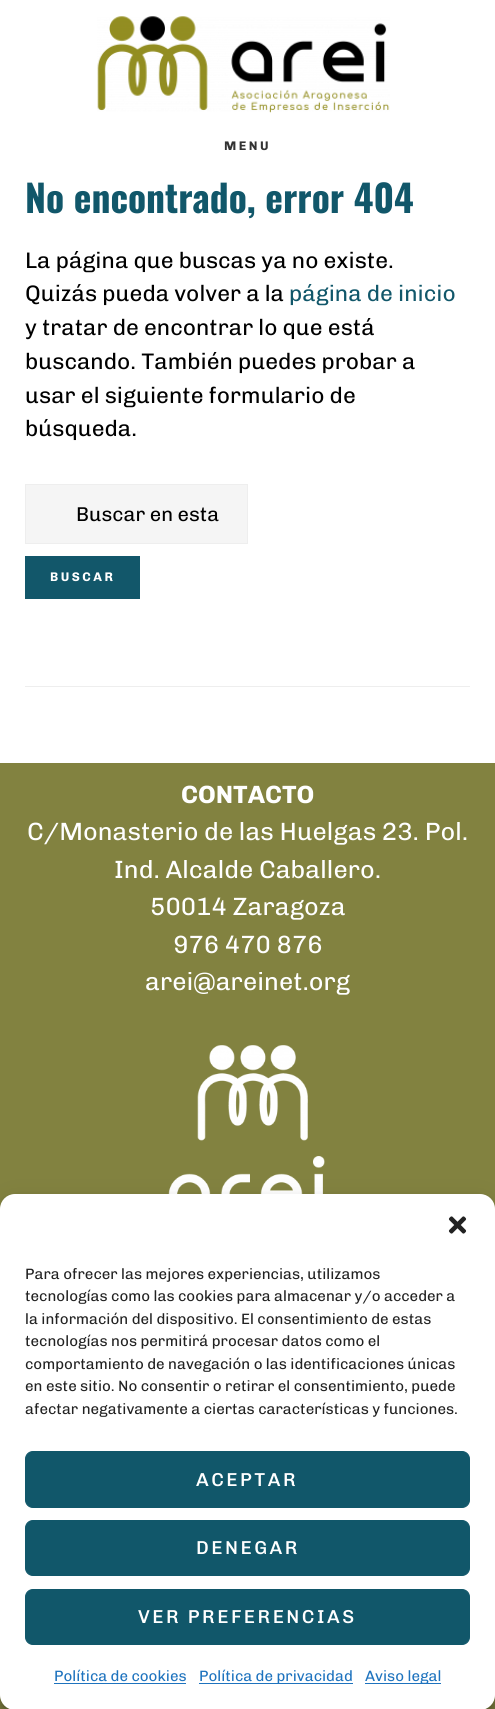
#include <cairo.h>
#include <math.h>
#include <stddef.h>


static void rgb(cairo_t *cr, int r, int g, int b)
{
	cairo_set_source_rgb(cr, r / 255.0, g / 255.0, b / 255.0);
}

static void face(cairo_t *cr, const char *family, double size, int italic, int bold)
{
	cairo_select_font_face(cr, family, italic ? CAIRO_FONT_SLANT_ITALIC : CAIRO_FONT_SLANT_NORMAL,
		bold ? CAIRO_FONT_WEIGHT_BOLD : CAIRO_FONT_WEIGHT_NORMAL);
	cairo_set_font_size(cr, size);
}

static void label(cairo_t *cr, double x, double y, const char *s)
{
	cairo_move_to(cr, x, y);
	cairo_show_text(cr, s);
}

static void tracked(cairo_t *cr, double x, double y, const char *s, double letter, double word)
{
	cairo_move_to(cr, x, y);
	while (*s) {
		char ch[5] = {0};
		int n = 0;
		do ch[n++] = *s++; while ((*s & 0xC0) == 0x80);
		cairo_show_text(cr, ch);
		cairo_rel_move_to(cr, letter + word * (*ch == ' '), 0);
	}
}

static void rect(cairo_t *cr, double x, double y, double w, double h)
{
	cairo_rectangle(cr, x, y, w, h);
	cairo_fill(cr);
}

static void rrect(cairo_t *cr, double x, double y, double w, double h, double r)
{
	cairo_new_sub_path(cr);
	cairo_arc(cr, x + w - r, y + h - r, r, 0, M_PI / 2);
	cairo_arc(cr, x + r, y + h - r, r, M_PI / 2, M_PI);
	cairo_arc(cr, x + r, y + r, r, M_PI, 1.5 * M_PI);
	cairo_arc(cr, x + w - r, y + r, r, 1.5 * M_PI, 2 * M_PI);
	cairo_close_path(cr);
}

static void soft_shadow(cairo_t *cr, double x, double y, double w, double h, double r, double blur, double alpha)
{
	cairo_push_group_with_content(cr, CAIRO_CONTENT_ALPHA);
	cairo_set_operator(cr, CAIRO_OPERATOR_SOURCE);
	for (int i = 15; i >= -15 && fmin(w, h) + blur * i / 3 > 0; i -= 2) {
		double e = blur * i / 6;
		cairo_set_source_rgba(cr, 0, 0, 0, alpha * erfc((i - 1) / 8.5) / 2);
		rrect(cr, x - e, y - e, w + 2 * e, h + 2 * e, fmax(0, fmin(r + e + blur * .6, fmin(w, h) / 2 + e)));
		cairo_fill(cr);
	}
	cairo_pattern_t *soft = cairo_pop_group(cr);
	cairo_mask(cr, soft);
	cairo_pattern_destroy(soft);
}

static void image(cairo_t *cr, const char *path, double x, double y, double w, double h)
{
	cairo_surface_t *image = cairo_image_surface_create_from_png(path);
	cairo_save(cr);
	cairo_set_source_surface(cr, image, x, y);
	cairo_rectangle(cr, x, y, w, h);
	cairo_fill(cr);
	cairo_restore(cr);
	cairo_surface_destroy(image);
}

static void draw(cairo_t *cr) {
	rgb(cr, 255, 255, 255);
	cairo_paint(cr);
	image(cr, "image0.png", 97, 16, 293, 97);
	face(cr, "Chivo", 12.5, 0, 1);
	rgb(cr, 51, 51, 51);
	tracked(cr, 224, 150, "MENU", 2.5, 0);
	rgb(cr, 238, 238, 238);
	rect(cr, 25, 686, 445, 1);
	face(cr, "Oswald", 37.5, 0, 1);
	rgb(cr, 17, 87, 106);
	label(cr, 25, 213, "No encontrado, error 404");
	face(cr, "Chivo", 22.5, 0, 0);
	rgb(cr, 0, 0, 0);
	label(cr, 25, 268, "La página que buscas ya no existe.");
	label(cr, 25, 301, "Quizás pueda volver a la");
	rgb(cr, 17, 87, 106);
	label(cr, 289, 301, "página de inicio");
	rgb(cr, 0, 0, 0);
	label(cr, 25, 335, "y tratar de encontrar lo que está");
	label(cr, 25, 369, "buscando. También puedes probar a");
	label(cr, 25, 403, "usar el siguiente formulario de");
	label(cr, 25, 436, "búsqueda.");
	rgb(cr, 245, 245, 245);
	cairo_rectangle(cr, 25.5, 484.5, 222, 59);
	cairo_fill_preserve(cr);
	rgb(cr, 238, 238, 238);
	cairo_set_line_width(cr, 1);
	cairo_stroke(cr);
	face(cr, "Chivo", 20, 0, 0);
	rgb(cr, 0, 0, 0);
	label(cr, 76, 521, "Buscar en esta");
	rgb(cr, 18, 87, 106);
	rect(cr, 25, 556, 115, 43);
	face(cr, "Chivo", 12.5, 0, 1);
	rgb(cr, 255, 255, 255);
	tracked(cr, 50, 581, "BUSCAR", 2.5, 0);
	rgb(cr, 130, 130, 64);
	rect(cr, 0, 763, 495, 446);
	face(cr, "Chivo", 25, 0, 1);
	rgb(cr, 255, 255, 255);
	label(cr, 181, 803, "CONTACTO");
	face(cr, "Chivo", 25, 0, 0);
	label(cr, 27, 840, "C/Monasterio de las Huelgas 23. Pol.");
	label(cr, 114, 878, "Ind. Alcalde Caballero.");
	label(cr, 150, 915, "50014 Zaragoza");
	label(cr, 173, 953, "976 470 876");
	label(cr, 145, 990, "arei@areinet.org");
	image(cr, "image1.png", 168, 1045, 157, 149);
	rgb(cr, 130, 130, 64);
	rect(cr, 0, 1695, 495, 14);
	rgb(cr, 0, 0, 0);
	soft_shadow(cr, 0, 1201, 495, 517, 15, 4, 0.23);
	soft_shadow(cr, 0, 1206, 495, 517, 15, 12.5, 0.19);
	rgb(cr, 255, 255, 255);
	rrect(cr, 0, 1194, 495, 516, 15);
	cairo_fill(cr);
	image(cr, "image2.png", 448, 1216, 19, 18);
	face(cr, "Chivo", 15, 0, 0);
	rgb(cr, 34, 34, 34);
	label(cr, 25, 1279, "Para ofrecer las mejores experiencias, utilizamos");
	label(cr, 25, 1301, "tecnologías como las cookies para almacenar y/o acceder a");
	label(cr, 25, 1324, "la información del dispositivo. El consentimiento de estas");
	label(cr, 25, 1346, "tecnologías nos permitirá procesar datos como el");
	label(cr, 25, 1369, "comportamiento de navegación o las identificaciones únicas");
	label(cr, 25, 1391, "en este sitio. No consentir o retirar el consentimiento, puede");
	label(cr, 25, 1414, "afectar negativamente a ciertas características y funciones.");
	rgb(cr, 17, 87, 106);
	rrect(cr, 25.5, 1451.5, 444, 56, 7.5);
	cairo_fill_preserve(cr);
	cairo_stroke(cr);
	face(cr, "Chivo Medium", 18.75, 0, 0);
	rgb(cr, 255, 255, 255);
	tracked(cr, 196, 1486, "ACEPTAR", 2.5, 0);
	rgb(cr, 17, 87, 106);
	rrect(cr, 25.5, 1520.5, 444, 55, 7.5);
	cairo_fill_preserve(cr);
	cairo_stroke(cr);
	rgb(cr, 255, 255, 255);
	tracked(cr, 196, 1554, "DENEGAR", 2.5, 0);
	rgb(cr, 17, 87, 106);
	rrect(cr, 25.5, 1589.5, 444, 55, 7.5);
	cairo_fill_preserve(cr);
	cairo_stroke(cr);
	rgb(cr, 255, 255, 255);
	tracked(cr, 138, 1623, "VER PREFERENCIAS", 2.5, 0);
	face(cr, "Chivo", 15, 0, 0);
	rgb(cr, 30, 115, 190);
	label(cr, 54, 1681, "Política de cookies");
	rect(cr, 54, 1683, 132, 1);
	rect(cr, 199, 1683, 154, 1);
	label(cr, 199, 1681, "Política de privacidad");
	rect(cr, 365, 1683, 76, 1);
	label(cr, 365, 1681, "Aviso legal");
}

int main(void) {
	cairo_surface_t *surface = cairo_image_surface_create(CAIRO_FORMAT_RGB24, 495, 1709);
	cairo_t *cr = cairo_create(surface);
	cairo_font_options_t *options = cairo_font_options_create();
	cairo_font_options_set_hint_metrics(options, CAIRO_HINT_METRICS_OFF);
	cairo_font_options_set_hint_style(options, CAIRO_HINT_STYLE_NONE);
	cairo_set_font_options(cr, options);
	cairo_set_miter_limit(cr, 4);
	draw(cr);
	cairo_surface_write_to_png(surface, "render.png");
	cairo_font_options_destroy(options);
	cairo_destroy(cr);
	cairo_surface_destroy(surface);
	return 0;
}
